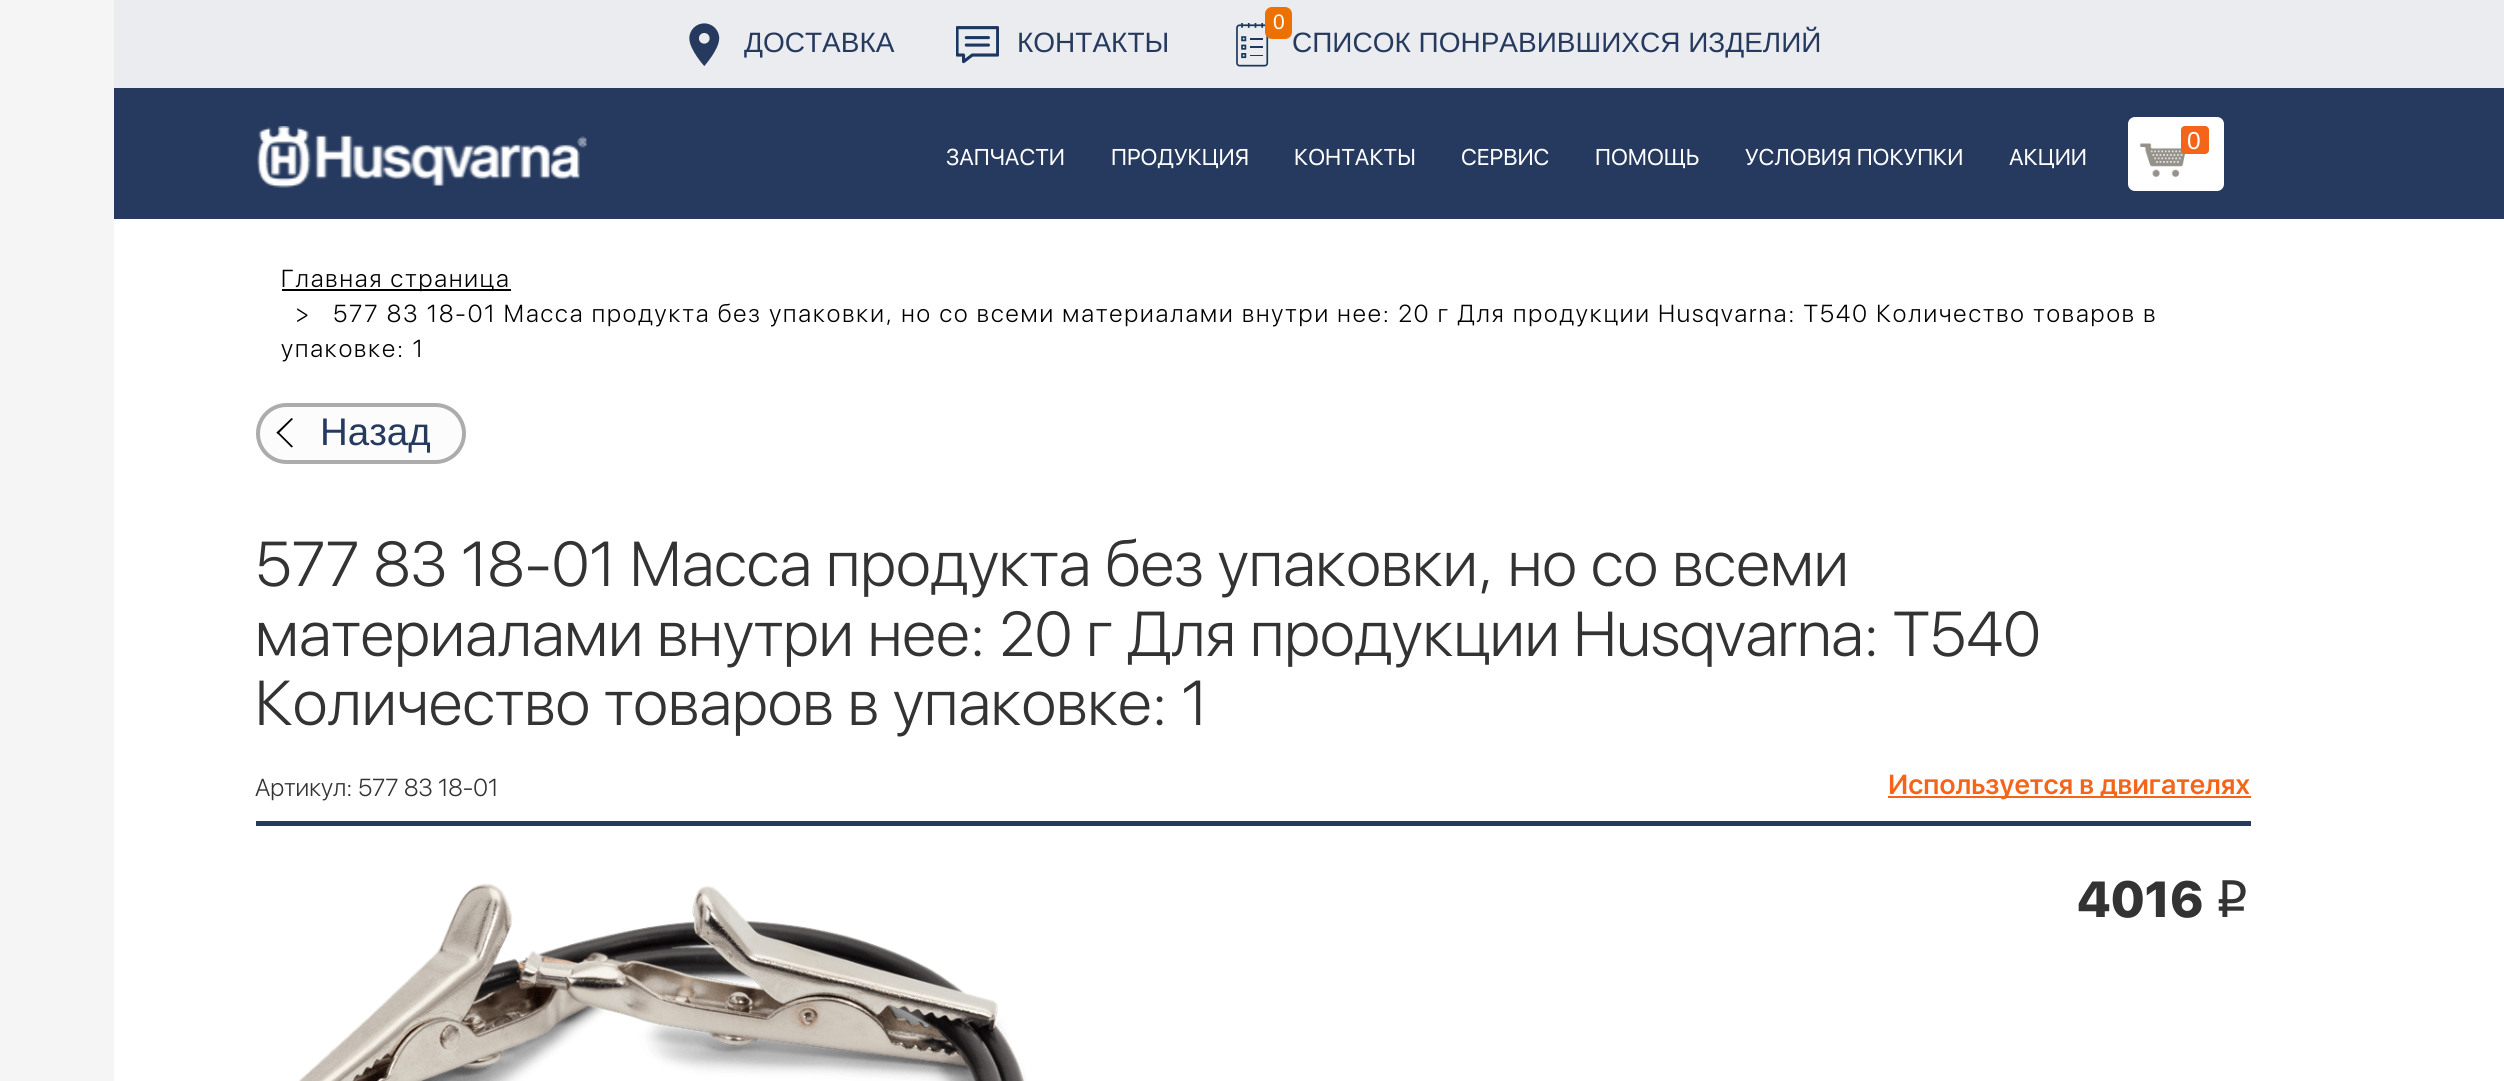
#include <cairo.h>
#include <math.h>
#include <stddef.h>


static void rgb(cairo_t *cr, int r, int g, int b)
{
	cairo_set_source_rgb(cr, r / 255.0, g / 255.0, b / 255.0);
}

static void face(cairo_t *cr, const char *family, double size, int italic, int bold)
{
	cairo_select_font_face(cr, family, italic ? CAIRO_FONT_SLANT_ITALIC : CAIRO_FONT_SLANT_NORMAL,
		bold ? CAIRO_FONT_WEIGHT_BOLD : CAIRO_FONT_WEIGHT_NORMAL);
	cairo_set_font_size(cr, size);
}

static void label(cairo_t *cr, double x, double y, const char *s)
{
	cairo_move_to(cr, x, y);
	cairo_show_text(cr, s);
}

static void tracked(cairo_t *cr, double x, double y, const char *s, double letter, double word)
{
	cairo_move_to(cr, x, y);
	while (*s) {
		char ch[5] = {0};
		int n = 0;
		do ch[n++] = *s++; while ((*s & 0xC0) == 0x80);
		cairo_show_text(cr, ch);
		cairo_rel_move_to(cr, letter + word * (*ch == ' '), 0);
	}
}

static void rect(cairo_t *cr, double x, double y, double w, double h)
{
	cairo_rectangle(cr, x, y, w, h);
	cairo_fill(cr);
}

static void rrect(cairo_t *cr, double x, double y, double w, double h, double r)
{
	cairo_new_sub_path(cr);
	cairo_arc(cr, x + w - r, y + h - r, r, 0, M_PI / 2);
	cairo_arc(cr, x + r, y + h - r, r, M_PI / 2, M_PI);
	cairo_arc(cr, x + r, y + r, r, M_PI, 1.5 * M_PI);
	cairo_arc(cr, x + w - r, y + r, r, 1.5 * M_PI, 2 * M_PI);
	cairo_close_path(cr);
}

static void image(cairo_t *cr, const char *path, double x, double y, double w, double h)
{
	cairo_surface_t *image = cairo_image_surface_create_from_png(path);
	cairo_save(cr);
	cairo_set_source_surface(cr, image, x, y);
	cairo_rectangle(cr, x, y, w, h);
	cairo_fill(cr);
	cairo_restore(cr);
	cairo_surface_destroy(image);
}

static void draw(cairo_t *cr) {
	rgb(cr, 255, 255, 255);
	cairo_paint(cr);
	rgb(cr, 245, 245, 245);
	rect(cr, 0, 0, 114, 1081);
	rgb(cr, 234, 236, 240);
	rect(cr, 114, 0, 2390, 88);
	image(cr, "image0.png", 689, 23, 31, 43);
	face(cr, "Liberation Sans", 28, 0, 0);
	rgb(cr, 38, 58, 95);
	label(cr, 744, 52, "ДОСТАВКА");
	image(cr, "image1.png", 956, 26, 43, 38);
	label(cr, 1017, 52, "КОНТАКТЫ");
	image(cr, "image2.png", 1236, 23, 33, 44);
	rgb(cr, 237, 113, 2);
	rrect(cr, 1265, 7, 27, 32, 7);
	cairo_fill(cr);
	face(cr, "Liberation Sans", 21, 0, 0);
	rgb(cr, 255, 255, 255);
	label(cr, 1273, 29, "0");
	face(cr, "Liberation Sans", 28, 0, 0);
	rgb(cr, 38, 58, 95);
	label(cr, 1292, 52, "СПИСОК ПОНРАВИВШИХСЯ ИЗДЕЛИЙ");
	rect(cr, 114, 88, 2390, 131);
	image(cr, "image3.png", 257, 126, 330, 62);
	rgb(cr, 255, 255, 255);
	rrect(cr, 2128, 117, 96, 74, 7);
	cairo_fill(cr);
	image(cr, "image4.png", 2140, 143, 45, 34);
	rgb(cr, 244, 101, 26);
	rrect(cr, 2181, 126, 28, 28, 4);
	cairo_fill(cr);
	face(cr, "Liberation Sans", 24.5, 0, 0);
	rgb(cr, 255, 255, 255);
	label(cr, 2187, 149, "0");
	face(cr, "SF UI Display", 22.75, 0, 0);
	label(cr, 946, 165, "ЗАПЧАСТИ");
	label(cr, 1111, 165, "ПРОДУКЦИЯ");
	label(cr, 1294, 165, "КОНТАКТЫ");
	label(cr, 1461, 165, "СЕРВИС");
	label(cr, 1595, 165, "ПОМОЩЬ");
	label(cr, 1745, 165, "УСЛОВИЯ ПОКУПКИ");
	label(cr, 2009, 165, "АКЦИИ");
	rgb(cr, 0, 0, 0);
	rect(cr, 282, 289, 229, 2);
	face(cr, "SF UI Display Light", 24.5, 0, 0);
	tracked(cr, 281, 287, "Главная страница", 1.93, 0);
	tracked(cr, 295, 322, ">", 1.93, 0);
	tracked(cr, 333, 322, "577 83 18-01 Масса продукта без упаковки, но со всеми материалами внутри нее: 20 г Для продукции Husqvarna: T540 Количество товаров в", 1.93, 0);
	tracked(cr, 281, 357, "упаковке: 1", 1.93, 0);
	rgb(cr, 252, 252, 252);
	rrect(cr, 258, 405, 206, 57, 28.5);
	cairo_fill_preserve(cr);
	rgb(cr, 172, 172, 172);
	cairo_set_line_width(cr, 4);
	cairo_stroke(cr);
	rgb(cr, 0, 0, 0);
	cairo_new_path(cr);
	cairo_move_to(cr, 276.5, 432.5);
	cairo_line_to(cr, 291.5, 418);
	cairo_line_to(cr, 293, 419);
	cairo_line_to(cr, 278, 434);
	cairo_close_path(cr);
	cairo_fill(cr);
	cairo_new_path(cr);
	cairo_move_to(cr, 276.5, 432.5);
	cairo_line_to(cr, 278, 431.5);
	cairo_line_to(cr, 293, 446.5);
	cairo_line_to(cr, 291.5, 447.5);
	cairo_close_path(cr);
	cairo_fill(cr);
	face(cr, "Liberation Sans", 38.5, 0, 0);
	rgb(cr, 38, 58, 95);
	label(cr, 320, 445, "Назад");
	face(cr, "SF UI Display Light", 63, 0, 0);
	rgb(cr, 51, 51, 51);
	label(cr, 255, 586, "577 83 18-01 Масса продукта без упаковки, но со всеми");
	label(cr, 255, 656, "материалами внутри нее: 20 г Для продукции Husqvarna: T540");
	label(cr, 255, 725, "Количество товаров в упаковке: 1");
	face(cr, "SF UI Display Light", 24.5, 0, 0);
	label(cr, 255, 796, "Артикул: 577 83 18-01");
	rgb(cr, 244, 101, 26);
	rect(cr, 1888, 796, 363, 2);
	face(cr, "SF UI Display SemiBold", 28, 0, 0);
	label(cr, 1888, 794, "Используется в двигателях");
	rgb(cr, 38, 58, 95);
	rect(cr, 256, 821, 1995, 5);
	image(cr, "image5.png", 299, 883, 727, 198);
	face(cr, "SF UI Display Black", 52.5, 0, 0);
	rgb(cr, 51, 51, 51);
	label(cr, 2077, 917, "4016");
	face(cr, "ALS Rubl", 52.5, 0, 0);
	label(cr, 2214, 917, "i");
}

int main(void) {
	cairo_surface_t *surface = cairo_image_surface_create(CAIRO_FORMAT_RGB24, 2504, 1081);
	cairo_t *cr = cairo_create(surface);
	cairo_font_options_t *options = cairo_font_options_create();
	cairo_font_options_set_hint_metrics(options, CAIRO_HINT_METRICS_OFF);
	cairo_font_options_set_hint_style(options, CAIRO_HINT_STYLE_NONE);
	cairo_set_font_options(cr, options);
	cairo_set_miter_limit(cr, 4);
	draw(cr);
	cairo_surface_write_to_png(surface, "render.png");
	cairo_font_options_destroy(options);
	cairo_destroy(cr);
	cairo_surface_destroy(surface);
	return 0;
}
